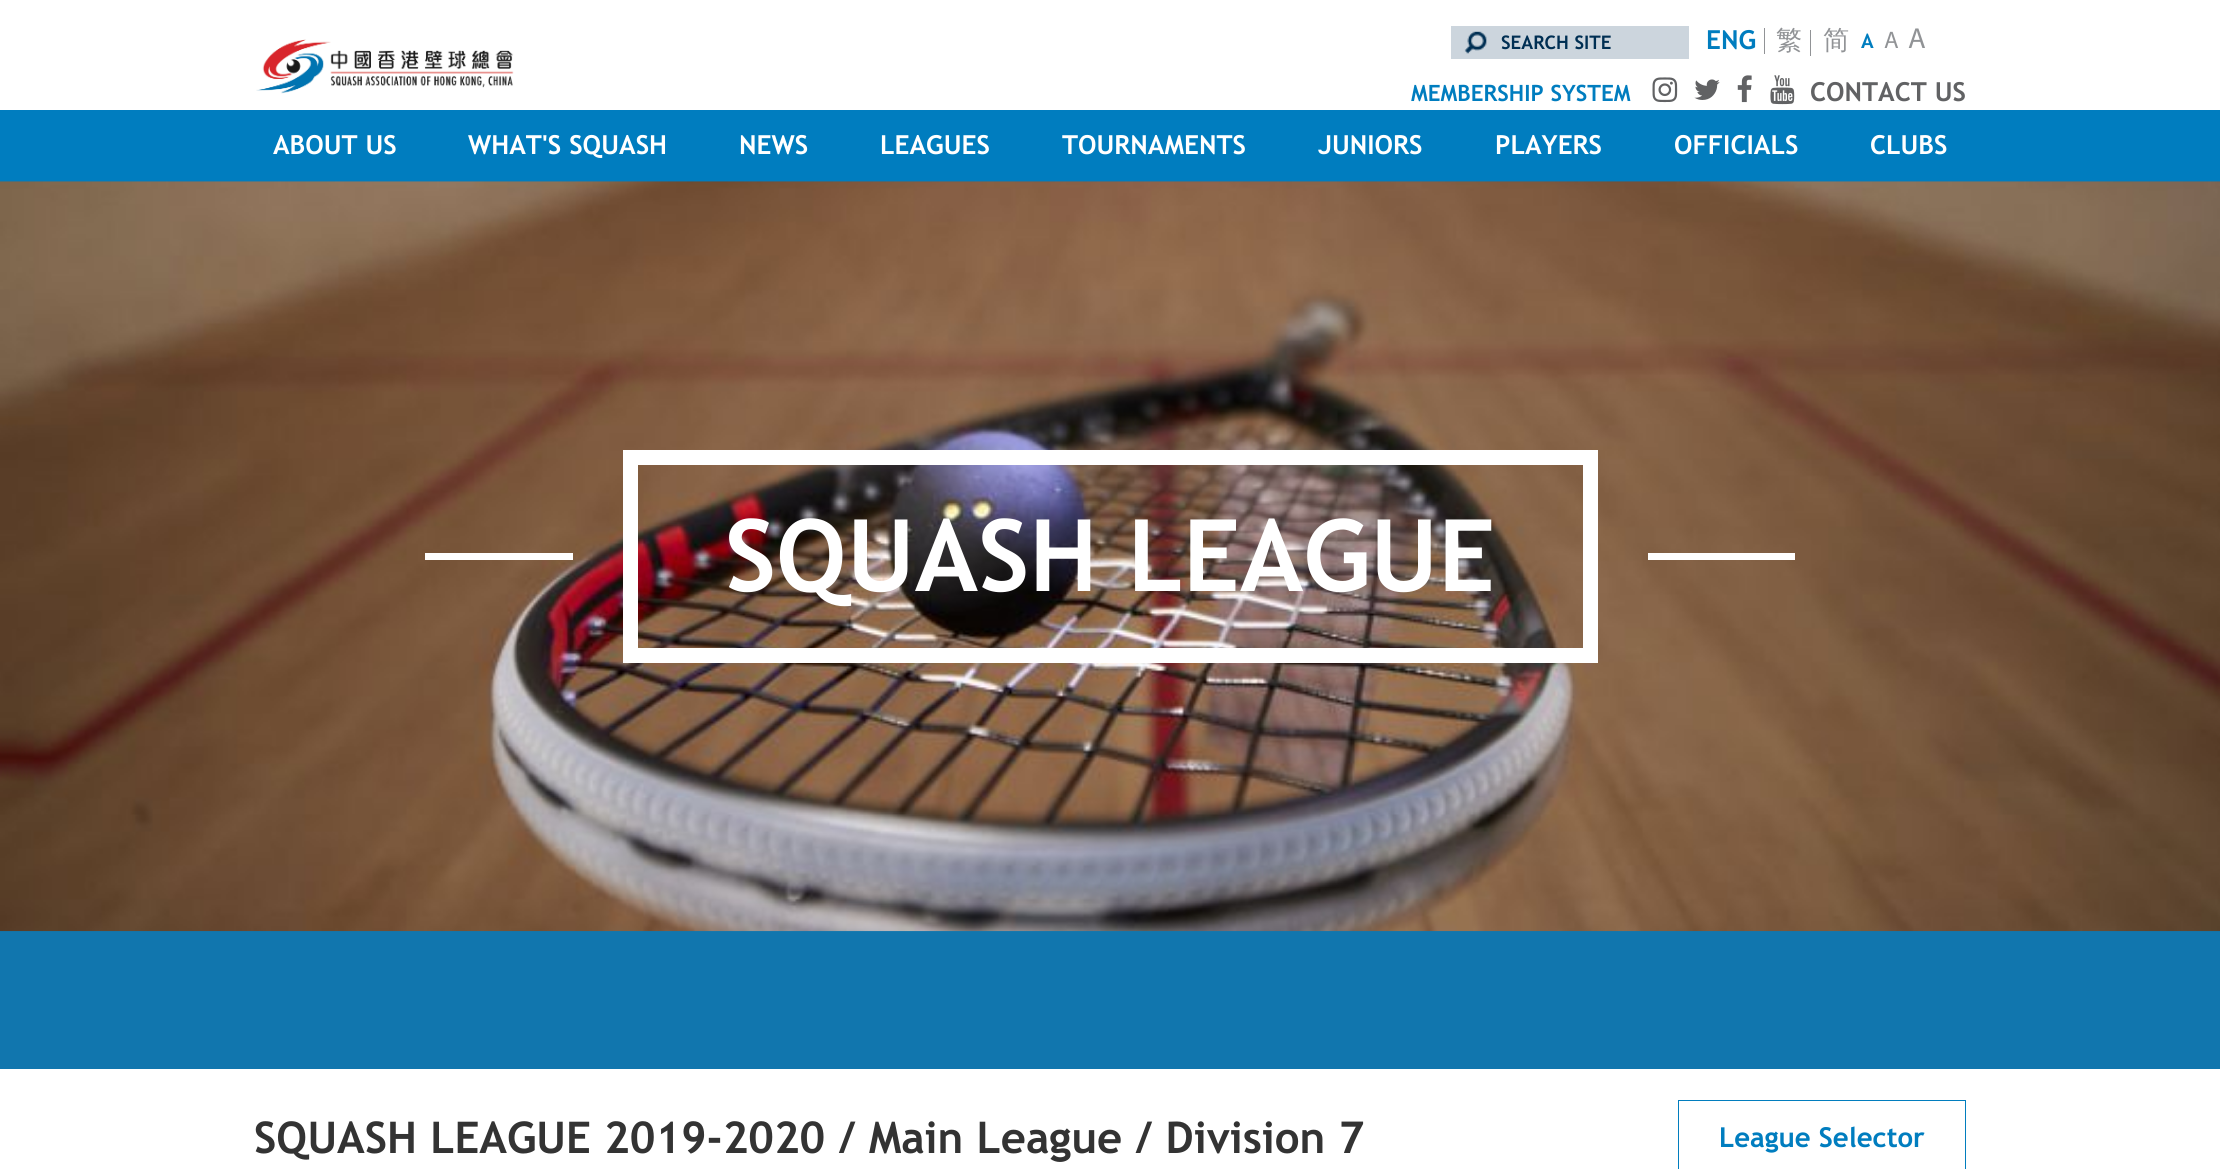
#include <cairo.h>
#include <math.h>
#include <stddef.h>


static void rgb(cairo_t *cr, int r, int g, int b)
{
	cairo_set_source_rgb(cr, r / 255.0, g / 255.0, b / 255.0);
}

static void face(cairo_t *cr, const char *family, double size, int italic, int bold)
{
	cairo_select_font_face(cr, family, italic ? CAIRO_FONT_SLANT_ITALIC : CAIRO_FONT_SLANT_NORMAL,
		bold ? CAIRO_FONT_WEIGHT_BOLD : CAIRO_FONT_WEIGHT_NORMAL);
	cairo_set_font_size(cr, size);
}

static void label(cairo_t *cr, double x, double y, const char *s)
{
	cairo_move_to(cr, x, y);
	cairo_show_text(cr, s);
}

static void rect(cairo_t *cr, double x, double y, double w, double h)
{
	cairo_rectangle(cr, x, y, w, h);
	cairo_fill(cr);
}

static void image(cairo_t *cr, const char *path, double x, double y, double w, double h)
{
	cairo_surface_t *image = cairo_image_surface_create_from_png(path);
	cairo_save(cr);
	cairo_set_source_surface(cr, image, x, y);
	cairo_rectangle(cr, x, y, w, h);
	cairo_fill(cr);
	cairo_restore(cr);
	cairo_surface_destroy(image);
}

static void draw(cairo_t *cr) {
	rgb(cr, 255, 255, 255);
	cairo_paint(cr);
	image(cr, "image0.png", 256, 39, 258, 55);
	rgb(cr, 204, 213, 221);
	rect(cr, 1451, 26, 238, 33);
	image(cr, "image1.png", 1464, 31, 23, 23);
	face(cr, "Trebuchet MS", 18.75, 0, 1);
	rgb(cr, 0, 47, 83);
	label(cr, 1501, 49, "SEARCH SITE");
	rgb(cr, 145, 147, 150);
	rect(cr, 1764, 28, 1, 26);
	face(cr, "Trebuchet MS", 26.25, 0, 1);
	rgb(cr, 0, 125, 191);
	label(cr, 1706, 49, "ENG");
	rgb(cr, 145, 147, 150);
	rect(cr, 1810, 30, 1, 26);
	face(cr, "WenQuanYi Zen Hei Medium", 26.25, 0, 0);
	label(cr, 1776, 49, "繁");
	label(cr, 1823, 49, "简");
	face(cr, "Trebuchet MS", 20, 0, 1);
	rgb(cr, 0, 125, 191);
	label(cr, 1861, 48, "A");
	face(cr, "Myriad", 24, 0, 0);
	rgb(cr, 145, 147, 150);
	label(cr, 1884, 48, "A");
	face(cr, "Myriad", 29, 0, 0);
	label(cr, 1908, 48, "A");
	face(cr, "Trebuchet MS", 22.5, 0, 1);
	rgb(cr, 0, 125, 191);
	label(cr, 1411, 101, "MEMBERSHIP SYSTEM");
	image(cr, "image2.png", 1652, 77, 26, 26);
	image(cr, "image3.png", 1694, 79, 26, 21);
	image(cr, "image4.png", 1737, 75, 15, 28);
	image(cr, "image5.png", 1770, 75, 25, 30);
	face(cr, "Trebuchet MS", 26.25, 0, 1);
	rgb(cr, 97, 98, 100);
	label(cr, 1810, 101, "CONTACT US");
	rgb(cr, 0, 125, 191);
	rect(cr, 0, 110, 2220, 72);
	rgb(cr, 255, 255, 255);
	label(cr, 273, 154, "ABOUT US");
	label(cr, 468, 154, "WHAT'S SQUASH");
	label(cr, 739, 154, "NEWS");
	label(cr, 880, 154, "LEAGUES");
	label(cr, 1062, 154, "TOURNAMENTS");
	label(cr, 1318, 154, "JUNIORS");
	label(cr, 1495, 154, "PLAYERS");
	label(cr, 1674, 154, "OFFICIALS");
	label(cr, 1870, 154, "CLUBS");
	rgb(cr, 17, 118, 174);
	rect(cr, 0, 931, 2220, 138);
	image(cr, "image6.png", 0, 181, 2220, 751);
	cairo_rectangle(cr, 630.5, 457.5, 960, 198);
	rgb(cr, 255, 255, 255);
	cairo_set_line_width(cr, 15);
	cairo_stroke(cr);
	rect(cr, 425, 553, 148, 7);
	face(cr, "Trebuchet MS", 100, 0, 1);
	label(cr, 725, 591, "SQUASH LEAGUE");
	rect(cr, 1648, 553, 147, 7);
	face(cr, "Trebuchet MS", 43.75, 0, 1);
	rgb(cr, 51, 51, 51);
	label(cr, 254, 1153, "SQUASH LEAGUE 2019-2020 / Main League / Division 7");
	cairo_rectangle(cr, 1678.5, 1100.5, 287, 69);
	rgb(cr, 1, 125, 190);
	cairo_set_line_width(cr, 1);
	cairo_stroke(cr);
	face(cr, "Trebuchet MS", 27.5, 0, 1);
	rgb(cr, 0, 125, 191);
	label(cr, 1719, 1147, "League Selector");
}

int main(void) {
	cairo_surface_t *surface = cairo_image_surface_create(CAIRO_FORMAT_RGB24, 2220, 1169);
	cairo_t *cr = cairo_create(surface);
	cairo_font_options_t *options = cairo_font_options_create();
	cairo_font_options_set_hint_metrics(options, CAIRO_HINT_METRICS_OFF);
	cairo_font_options_set_hint_style(options, CAIRO_HINT_STYLE_NONE);
	cairo_set_font_options(cr, options);
	cairo_set_miter_limit(cr, 4);
	draw(cr);
	cairo_surface_write_to_png(surface, "render.png");
	cairo_font_options_destroy(options);
	cairo_destroy(cr);
	cairo_surface_destroy(surface);
	return 0;
}
